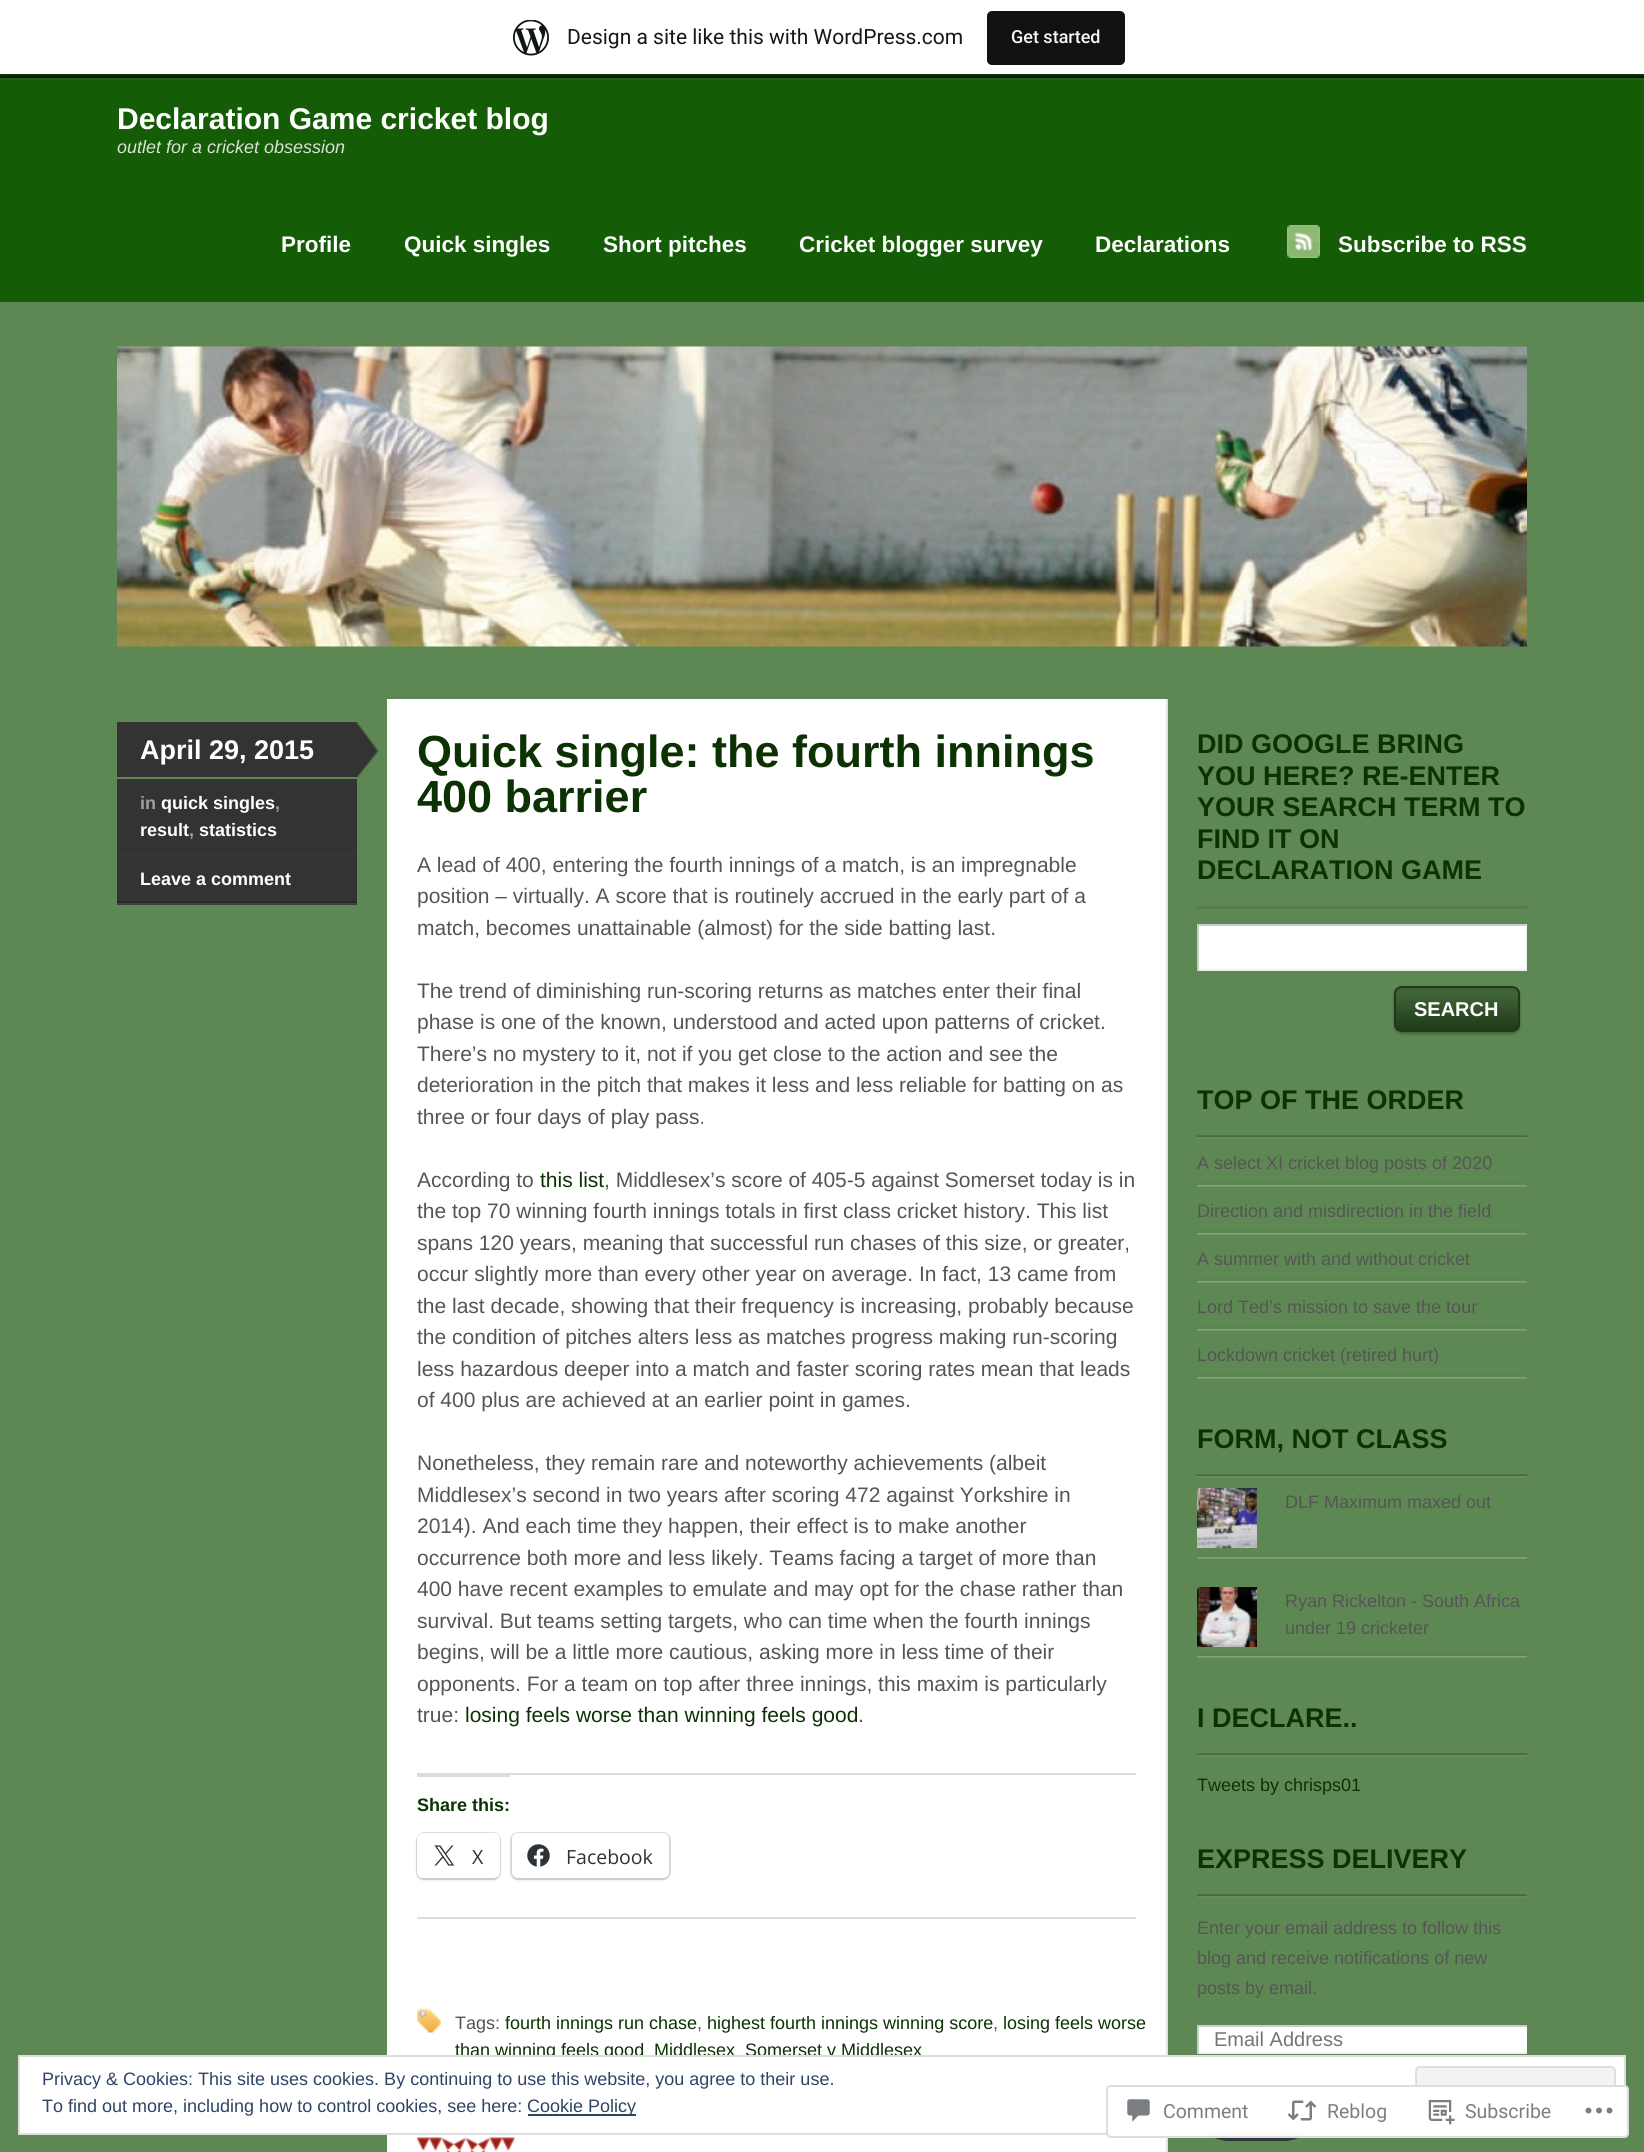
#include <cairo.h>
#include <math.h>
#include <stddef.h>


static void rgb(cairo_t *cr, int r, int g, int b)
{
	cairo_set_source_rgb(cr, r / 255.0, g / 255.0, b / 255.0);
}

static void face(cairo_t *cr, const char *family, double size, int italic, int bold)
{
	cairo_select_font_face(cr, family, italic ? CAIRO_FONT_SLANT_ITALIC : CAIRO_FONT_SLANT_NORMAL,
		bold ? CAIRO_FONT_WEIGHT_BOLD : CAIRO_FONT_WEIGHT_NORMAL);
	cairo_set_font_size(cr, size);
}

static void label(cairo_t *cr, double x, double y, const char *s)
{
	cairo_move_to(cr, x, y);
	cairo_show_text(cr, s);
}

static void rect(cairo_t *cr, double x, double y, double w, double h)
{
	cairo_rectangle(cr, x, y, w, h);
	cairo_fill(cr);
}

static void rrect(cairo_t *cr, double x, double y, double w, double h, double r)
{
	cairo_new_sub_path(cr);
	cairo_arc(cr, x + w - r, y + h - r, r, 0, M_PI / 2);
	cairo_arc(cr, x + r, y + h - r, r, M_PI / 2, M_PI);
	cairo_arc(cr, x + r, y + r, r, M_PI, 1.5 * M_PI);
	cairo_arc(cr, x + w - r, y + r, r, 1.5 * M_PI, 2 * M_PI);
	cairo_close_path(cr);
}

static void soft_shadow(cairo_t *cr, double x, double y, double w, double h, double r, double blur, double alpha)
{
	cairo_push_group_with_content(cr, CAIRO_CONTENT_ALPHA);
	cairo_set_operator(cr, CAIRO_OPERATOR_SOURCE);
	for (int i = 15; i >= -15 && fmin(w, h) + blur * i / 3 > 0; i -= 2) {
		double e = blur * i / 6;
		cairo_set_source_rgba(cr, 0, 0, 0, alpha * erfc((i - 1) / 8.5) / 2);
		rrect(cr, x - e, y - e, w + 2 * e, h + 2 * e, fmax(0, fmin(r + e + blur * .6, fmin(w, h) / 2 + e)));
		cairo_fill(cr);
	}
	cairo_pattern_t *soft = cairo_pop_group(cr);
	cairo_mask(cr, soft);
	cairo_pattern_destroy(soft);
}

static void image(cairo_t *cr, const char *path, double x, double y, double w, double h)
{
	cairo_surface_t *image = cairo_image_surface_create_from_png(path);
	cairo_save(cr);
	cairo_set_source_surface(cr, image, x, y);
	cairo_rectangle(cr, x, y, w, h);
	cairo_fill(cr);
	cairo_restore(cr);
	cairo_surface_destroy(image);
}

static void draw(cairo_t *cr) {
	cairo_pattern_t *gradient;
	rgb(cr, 94, 136, 83);
	cairo_paint(cr);
	rgb(cr, 21, 92, 6);
	rect(cr, 0, 74, 1644, 228);
	image(cr, "image1.png", 0, 74, 1644, 6);
	cairo_set_source_rgba(cr, 0, 0, 0, 0.08);
	cairo_new_path(cr);
	cairo_move_to(cr, 2, 74);
	cairo_line_to(cr, 2, 78);
	cairo_line_to(cr, 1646, 78);
	cairo_line_to(cr, 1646, 5);
	cairo_line_to(cr, 1644, 5);
	cairo_line_to(cr, 1644, 74);
	cairo_close_path(cr);
	cairo_fill(cr);
	rgb(cr, 255, 255, 255);
	rect(cr, 0, 0, 1644, 74);
	image(cr, "image0.png", 513, 20, 36, 36);
	face(cr, "Roboto", 21, 0, 0);
	rgb(cr, 23, 23, 23);
	label(cr, 567, 44, "Design a site like this with WordPress.com");
	rgb(cr, 17, 17, 17);
	rrect(cr, 987, 11, 138, 54, 5);
	cairo_fill(cr);
	face(cr, "Roboto Medium", 18, 0, 0);
	rgb(cr, 246, 247, 247);
	label(cr, 1011, 43, "Get started");
	face(cr, "Liberation Sans", 30, 0, 1);
	rgb(cr, 255, 255, 255);
	label(cr, 117, 129, "Declaration Game cricket blog");
	face(cr, "Liberation Sans", 18, 1, 0);
	rgb(cr, 217, 227, 215);
	label(cr, 117, 153, "outlet for a cricket obsession");
	face(cr, "Liberation Sans", 22.5, 0, 1);
	rgb(cr, 255, 255, 255);
	label(cr, 281, 252, "Profile");
	label(cr, 404, 252, "Quick singles");
	label(cr, 603, 252, "Short pitches");
	label(cr, 799, 252, "Cricket blogger survey");
	label(cr, 1095, 252, "Declarations");
	image(cr, "image2.png", 1287, 225, 33, 33);
	label(cr, 1338, 252, "Subscribe to RSS");
	image(cr, "image3.png", 117, 346, 1410, 301);
	rgb(cr, 51, 51, 51);
	rect(cr, 117, 722, 240, 55);
	face(cr, "Liberation Sans", 27, 0, 1);
	rgb(cr, 255, 255, 255);
	label(cr, 140, 759, "April 29, 2015");
	image(cr, "image4.png", 357, 722, 22, 56);
	rgb(cr, 51, 51, 51);
	rect(cr, 117, 779, 240, 126);
	rgb(cr, 54, 54, 54);
	rect(cr, 117, 852, 240, 3);
	face(cr, "Liberation Sans", 18, 0, 1);
	rgb(cr, 159, 159, 159);
	label(cr, 140, 809, "in");
	rgb(cr, 255, 255, 255);
	label(cr, 161, 809, "quick singles");
	rgb(cr, 159, 159, 159);
	label(cr, 275, 809, ",");
	rgb(cr, 255, 255, 255);
	label(cr, 140, 836, "result");
	rgb(cr, 159, 159, 159);
	label(cr, 189, 836, ",");
	rgb(cr, 255, 255, 255);
	label(cr, 199, 836, "statistics");
	image(cr, "image5.png", 117, 901, 240, 4);
	label(cr, 140, 885, "Leave a comment");
	rect(cr, 387, 699, 779, 1453);
	rgb(cr, 227, 227, 227);
	rect(cr, 1166, 699, 2, 1453);
	face(cr, "Liberation Sans", 45, 0, 1);
	rgb(cr, 12, 50, 4);
	label(cr, 417, 767, "Quick single: the fourth innings");
	label(cr, 417, 812, "400 barrier");
	face(cr, "Liberation Sans", 21, 0, 0);
	rgb(cr, 85, 85, 85);
	label(cr, 417, 872, "A lead of 400, entering the fourth innings of a match, is an impregnable");
	label(cr, 417, 903, "position – virtually. A score that is routinely accrued in the early part of a");
	label(cr, 417, 935, "match, becomes unattainable (almost) for the side batting last.");
	label(cr, 417, 998, "The trend of diminishing run-scoring returns as matches enter their final");
	label(cr, 417, 1029, "phase is one of the known, understood and acted upon patterns of cricket.");
	label(cr, 417, 1061, "There’s no mystery to it, not if you get close to the action and see the");
	label(cr, 417, 1092, "deterioration in the pitch that makes it less and less reliable for batting on as");
	label(cr, 417, 1124, "three or four days of play pass.");
	label(cr, 417, 1187, "According to");
	rgb(cr, 12, 50, 4);
	label(cr, 540, 1187, "this list");
	rgb(cr, 85, 85, 85);
	label(cr, 604, 1187, ", Middlesex’s score of 405-5 against Somerset today is in");
	label(cr, 417, 1218, "the top 70 winning fourth innings totals in first class cricket history. This list");
	label(cr, 417, 1250, "spans 120 years, meaning that successful run chases of this size, or greater,");
	label(cr, 417, 1281, "occur slightly more than every other year on average. In fact, 13 came from");
	label(cr, 417, 1313, "the last decade, showing that their frequency is increasing, probably because");
	label(cr, 417, 1344, "the condition of pitches alters less as matches progress making run-scoring");
	label(cr, 417, 1376, "less hazardous deeper into a match and faster scoring rates mean that leads");
	label(cr, 417, 1407, "of 400 plus are achieved at an earlier point in games.");
	label(cr, 417, 1470, "Nonetheless, they remain rare and noteworthy achievements (albeit");
	label(cr, 417, 1502, "Middlesex’s second in two years after scoring 472 against Yorkshire in");
	label(cr, 417, 1533, "2014). And each time they happen, their effect is to make another");
	label(cr, 417, 1565, "occurrence both more and less likely. Teams facing a target of more than");
	label(cr, 417, 1596, "400 have recent examples to emulate and may opt for the chase rather than");
	label(cr, 417, 1628, "survival. But teams setting targets, who can time when the fourth innings");
	label(cr, 417, 1659, "begins, will be a little more cautious, asking more in less time of their");
	label(cr, 417, 1691, "opponents. For a team on top after three innings, this maxim is particularly");
	label(cr, 417, 1722, "true:");
	rgb(cr, 12, 50, 4);
	label(cr, 465, 1722, "losing feels worse than winning feels good");
	rgb(cr, 85, 85, 85);
	label(cr, 858, 1722, ".");
	rgb(cr, 221, 221, 221);
	rect(cr, 417, 1773, 719, 2);
	rgb(cr, 220, 220, 222);
	rect(cr, 417, 1775, 93, 2);
	face(cr, "Liberation Sans", 18, 0, 1);
	rgb(cr, 12, 50, 4);
	label(cr, 417, 1811, "Share this:");
	rrect(cr, 417, 1833, 83, 46, 7);
	rgb(cr, 224, 224, 224);
	cairo_stroke(cr);
	rgb(cr, 0, 0, 0);
	soft_shadow(cr, 417, 1835, 83, 45, 6, 1.5, 0.12);
	rgb(cr, 255, 255, 255);
	rrect(cr, 417, 1833, 83, 45, 6);
	cairo_fill(cr);
	image(cr, "image6.png", 434, 1845, 21, 21);
	face(cr, "Open Sans", 19.5, 0, 0);
	rgb(cr, 44, 51, 56);
	label(cr, 472, 1864, "X");
	rrect(cr, 511, 1833, 159, 46, 7);
	rgb(cr, 224, 224, 224);
	cairo_stroke(cr);
	rgb(cr, 0, 0, 0);
	soft_shadow(cr, 512, 1835, 157, 45, 6, 1.5, 0.12);
	rgb(cr, 255, 255, 255);
	rrect(cr, 512, 1833, 157, 45, 6);
	cairo_fill(cr);
	image(cr, "image7.png", 527, 1844, 23, 23);
	rgb(cr, 44, 51, 56);
	label(cr, 566, 1864, "Facebook");
	rgb(cr, 221, 221, 221);
	rect(cr, 417, 1917, 719, 2);
	image(cr, "image8.png", 417, 2008, 24, 25);
	face(cr, "Liberation Sans", 18, 0, 0);
	rgb(cr, 85, 85, 85);
	label(cr, 455, 2029, "Tags:");
	rgb(cr, 12, 50, 4);
	label(cr, 505, 2029, "fourth innings run chase");
	rgb(cr, 85, 85, 85);
	label(cr, 697, 2029, ",");
	rgb(cr, 12, 50, 4);
	label(cr, 707, 2029, "highest fourth innings winning score");
	rgb(cr, 85, 85, 85);
	label(cr, 993, 2029, ",");
	rgb(cr, 12, 50, 4);
	label(cr, 1003, 2029, "losing feels worse");
	label(cr, 455, 2056, "than winning feels good");
	label(cr, 654, 2056, "Middlesex");
	label(cr, 745, 2056, "Somerset v Middlesex");
	image(cr, "image9.png", 417, 2135, 98, 17);
	rgb(cr, 88, 122, 79);
	rect(cr, 1197, 906, 330, 3);
	face(cr, "Liberation Sans", 27, 0, 1);
	rgb(cr, 12, 50, 4);
	label(cr, 1197, 753, "DID GOOGLE BRING");
	label(cr, 1197, 785, "YOU HERE? RE-ENTER");
	label(cr, 1197, 816, "YOUR SEARCH TERM TO");
	label(cr, 1197, 848, "FIND IT ON");
	label(cr, 1197, 879, "DECLARATION GAME");
	rgb(cr, 255, 255, 255);
	rect(cr, 1199, 926, 327, 43);
	rgb(cr, 204, 204, 204);
	rect(cr, 1197, 924, 330, 2);
	rgb(cr, 239, 239, 239);
	rect(cr, 1526, 924, 1, 47);
	rect(cr, 1197, 969, 330, 2);
	rgb(cr, 204, 204, 204);
	rect(cr, 1197, 924, 2, 47);
	rgb(cr, 0, 0, 0);
	soft_shadow(cr, 1394, 987, 126, 47, 8, 1.5, 0.29);
	cairo_save(cr);
	rrect(cr, 1394, 986, 126, 46, 8);
	cairo_clip(cr);
	gradient = cairo_pattern_create_linear(1395, 987, 1395, 1031);
	cairo_pattern_add_color_stop_rgba(gradient, 0.2, 0.243, 0.38, 0.212, 1);
	cairo_pattern_add_color_stop_rgba(gradient, 1, 0.118, 0.224, 0.094, 1);
	cairo_set_source(cr, gradient);
	cairo_pattern_destroy(gradient);
	rect(cr, 1394, 987, 126, 44);
	cairo_restore(cr);
	rrect(cr, 1395, 987, 124, 44, 7);
	rgb(cr, 30, 57, 24);
	cairo_stroke(cr);
	face(cr, "Liberation Sans", 20, 0, 1);
	rgb(cr, 255, 255, 255);
	label(cr, 1414, 1016, "SEARCH");
	image(cr, "image10.png", 1197, 1135, 330, 4);
	face(cr, "Liberation Sans", 27, 0, 1);
	rgb(cr, 12, 50, 4);
	label(cr, 1197, 1109, "TOP OF THE ORDER");
	image(cr, "image11.png", 1197, 1183, 330, 4);
	face(cr, "Liberation Sans", 18, 0, 0);
	rgb(cr, 85, 85, 85);
	label(cr, 1197, 1169, "A select XI cricket blog posts of 2020");
	image(cr, "image11.png", 1197, 1231, 330, 4);
	label(cr, 1197, 1217, "Direction and misdirection in the field");
	image(cr, "image11.png", 1197, 1279, 330, 4);
	label(cr, 1197, 1265, "A summer with and without cricket");
	image(cr, "image11.png", 1197, 1327, 330, 4);
	label(cr, 1197, 1313, "Lord Ted’s mission to save the tour");
	image(cr, "image11.png", 1197, 1375, 330, 4);
	label(cr, 1197, 1361, "Lockdown cricket (retired hurt)");
	image(cr, "image10.png", 1197, 1474, 330, 4);
	face(cr, "Liberation Sans", 27, 0, 1);
	rgb(cr, 12, 50, 4);
	label(cr, 1197, 1448, "FORM, NOT CLASS");
	image(cr, "image11.png", 1197, 1555, 330, 4);
	image(cr, "image12.png", 1197, 1488, 60, 60);
	face(cr, "Liberation Sans", 18, 0, 0);
	rgb(cr, 85, 85, 85);
	label(cr, 1285, 1508, "DLF Maximum maxed out");
	image(cr, "image11.png", 1197, 1654, 330, 4);
	image(cr, "image13.png", 1197, 1587, 60, 60);
	label(cr, 1285, 1607, "Ryan Rickelton - South Africa");
	label(cr, 1285, 1634, "under 19 cricketer");
	image(cr, "image14.png", 1197, 1753, 330, 4);
	face(cr, "Liberation Sans", 27, 0, 1);
	rgb(cr, 12, 50, 4);
	label(cr, 1197, 1727, "I DECLARE..");
	face(cr, "Liberation Sans", 18, 0, 0);
	label(cr, 1197, 1791, "Tweets by chrisps01");
	image(cr, "image10.png", 1197, 1894, 330, 4);
	face(cr, "Liberation Sans", 27, 0, 1);
	label(cr, 1197, 1868, "EXPRESS DELIVERY");
	face(cr, "Liberation Sans", 18, 0, 0);
	rgb(cr, 85, 85, 85);
	label(cr, 1197, 1934, "Enter your email address to follow this");
	label(cr, 1197, 1964, "blog and receive notifications of new");
	label(cr, 1197, 1994, "posts by email.");
	rgb(cr, 255, 255, 255);
	rect(cr, 1199, 2027, 328, 25);
	rgb(cr, 204, 204, 204);
	rect(cr, 1197, 2025, 330, 2);
	rgb(cr, 239, 239, 239);
	rect(cr, 1197, 2052, 330, 2);
	rgb(cr, 204, 204, 204);
	rect(cr, 1197, 2025, 2, 29);
	face(cr, "Liberation Sans", 20, 0, 0);
	rgb(cr, 117, 117, 117);
	label(cr, 1214, 2046, "Email Address");
	rgb(cr, 50, 55, 60);
	rrect(cr, 1197, 2078, 119, 63, 31.5);
	cairo_fill(cr);
	rgb(cr, 255, 255, 255);
	cairo_rectangle(cr, 19, 2056, 1606, 78);
	cairo_fill_preserve(cr);
	rgb(cr, 222, 222, 222);
	cairo_stroke(cr);
	face(cr, "Liberation Sans", 18, 0, 0);
	rgb(cr, 46, 68, 103);
	label(cr, 42, 2085, "Privacy & Cookies: This site uses cookies. By continuing to use this website, you agree to their use.");
	rgb(cr, 243, 243, 243);
	rrect(cr, 1416, 2067, 199, 56, 4);
	cairo_fill_preserve(cr);
	rgb(cr, 222, 222, 222);
	cairo_stroke(cr);
	rgb(cr, 46, 68, 103);
	label(cr, 42, 2112, "To find out more, including how to control cookies, see here:");
	rect(cr, 528, 2114, 108, 2);
	label(cr, 527, 2112, "Cookie Policy");
	cairo_set_source_rgba(cr, 1, 1, 1, 0.98);
	rrect(cr, 1106, 2085, 523, 53, 5);
	cairo_fill(cr);
	rrect(cr, 1107, 2086, 521, 51, 4);
	cairo_set_source_rgba(cr, 0.863, 0.863, 0.871, 0.98);
	cairo_stroke(cr);
	image(cr, "image15.png", 1127, 2099, 23, 23);
	face(cr, "Roboto", 19.5, 0, 0);
	rgb(cr, 123, 127, 133);
	label(cr, 1163, 2118, "Comment");
	image(cr, "image16.png", 1287, 2100, 30, 21);
	label(cr, 1327, 2118, "Reblog");
	image(cr, "image17.png", 1428, 2100, 27, 25);
	label(cr, 1465, 2118, "Subscribe");
	image(cr, "image18.png", 1585, 2107, 28, 7);
}

int main(void) {
	cairo_surface_t *surface = cairo_image_surface_create(CAIRO_FORMAT_RGB24, 1644, 2152);
	cairo_t *cr = cairo_create(surface);
	cairo_font_options_t *options = cairo_font_options_create();
	cairo_font_options_set_hint_metrics(options, CAIRO_HINT_METRICS_OFF);
	cairo_font_options_set_hint_style(options, CAIRO_HINT_STYLE_NONE);
	cairo_set_font_options(cr, options);
	cairo_set_miter_limit(cr, 4);
	draw(cr);
	cairo_surface_write_to_png(surface, "render.png");
	cairo_font_options_destroy(options);
	cairo_destroy(cr);
	cairo_surface_destroy(surface);
	return 0;
}
